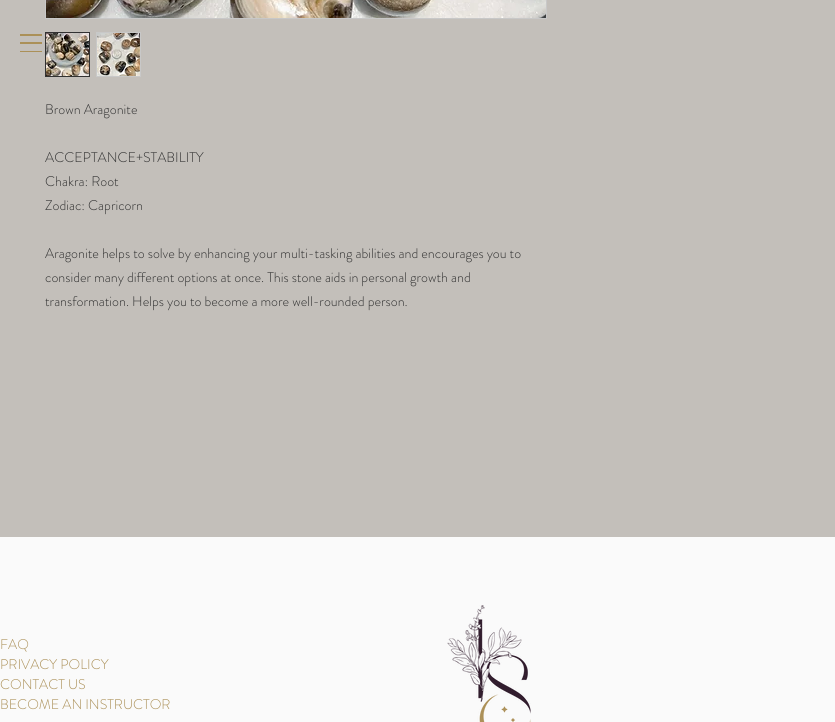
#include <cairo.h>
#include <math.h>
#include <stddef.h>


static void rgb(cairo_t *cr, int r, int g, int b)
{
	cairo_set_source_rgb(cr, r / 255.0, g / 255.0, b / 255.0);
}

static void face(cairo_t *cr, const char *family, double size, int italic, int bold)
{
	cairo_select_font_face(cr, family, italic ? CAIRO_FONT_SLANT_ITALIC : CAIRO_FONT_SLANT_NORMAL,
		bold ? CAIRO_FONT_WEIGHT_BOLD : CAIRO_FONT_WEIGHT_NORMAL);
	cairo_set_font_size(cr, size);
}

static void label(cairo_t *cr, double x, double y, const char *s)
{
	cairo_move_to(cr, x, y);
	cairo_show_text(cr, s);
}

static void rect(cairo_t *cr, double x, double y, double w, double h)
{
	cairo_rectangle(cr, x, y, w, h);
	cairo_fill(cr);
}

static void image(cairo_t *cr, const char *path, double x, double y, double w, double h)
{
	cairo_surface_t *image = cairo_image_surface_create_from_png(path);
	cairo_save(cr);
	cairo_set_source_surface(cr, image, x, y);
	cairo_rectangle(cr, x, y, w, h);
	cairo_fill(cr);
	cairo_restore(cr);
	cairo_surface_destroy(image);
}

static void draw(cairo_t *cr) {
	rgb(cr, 195, 191, 186);
	cairo_paint(cr);
	rgb(cr, 171, 144, 88);
	rect(cr, 20, 34, 22, 2);
	rect(cr, 20, 42, 22, 2);
	rect(cr, 20, 51, 22, 1);
	cairo_rectangle(cr, 45.5, -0.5, 501, 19);
	rgb(cr, 200, 200, 200);
	cairo_set_line_width(cr, 1);
	cairo_stroke(cr);
	image(cr, "image0.png", 46, 0, 500, 18);
	cairo_rectangle(cr, 45.5, 32.5, 44, 44);
	rgb(cr, 50, 50, 50);
	cairo_stroke(cr);
	image(cr, "image1.png", 46, 33, 43, 43);
	cairo_rectangle(cr, 96.5, 32.5, 44, 44);
	rgb(cr, 200, 200, 200);
	cairo_stroke(cr);
	image(cr, "image2.png", 97, 33, 43, 43);
	face(cr, "Brandon Grotesque Light", 14, 0, 0);
	rgb(cr, 50, 50, 50);
	label(cr, 45, 114, "Brown Aragonite");
	label(cr, 45, 162, "ACCEPTANCE+STABILITY");
	label(cr, 45, 186, "Chakra: Root");
	label(cr, 45, 210, "Zodiac: Capricorn");
	label(cr, 45, 258, "Aragonite helps to solve by enhancing your multi-tasking abilities and encourages you to");
	label(cr, 45, 282, "consider many different options at once. This stone aids in personal growth and");
	label(cr, 45, 306, "transformation. Helps you to become a more well-rounded person.");
	rgb(cr, 250, 250, 250);
	rect(cr, 0, 537, 835, 185);
	rgb(cr, 171, 144, 88);
	label(cr, 0, 649, "FAQ");
	label(cr, 0, 669, "PRIVACY POLICY");
	label(cr, 0, 689, "CONTACT US");
	label(cr, 0, 709, "BECOME AN INSTRUCTOR");
	image(cr, "image3.png", 447, 605, 84, 117);
}

int main(void) {
	cairo_surface_t *surface = cairo_image_surface_create(CAIRO_FORMAT_RGB24, 835, 722);
	cairo_t *cr = cairo_create(surface);
	cairo_font_options_t *options = cairo_font_options_create();
	cairo_font_options_set_hint_metrics(options, CAIRO_HINT_METRICS_OFF);
	cairo_font_options_set_hint_style(options, CAIRO_HINT_STYLE_NONE);
	cairo_set_font_options(cr, options);
	cairo_set_miter_limit(cr, 4);
	draw(cr);
	cairo_surface_write_to_png(surface, "render.png");
	cairo_font_options_destroy(options);
	cairo_destroy(cr);
	cairo_surface_destroy(surface);
	return 0;
}
